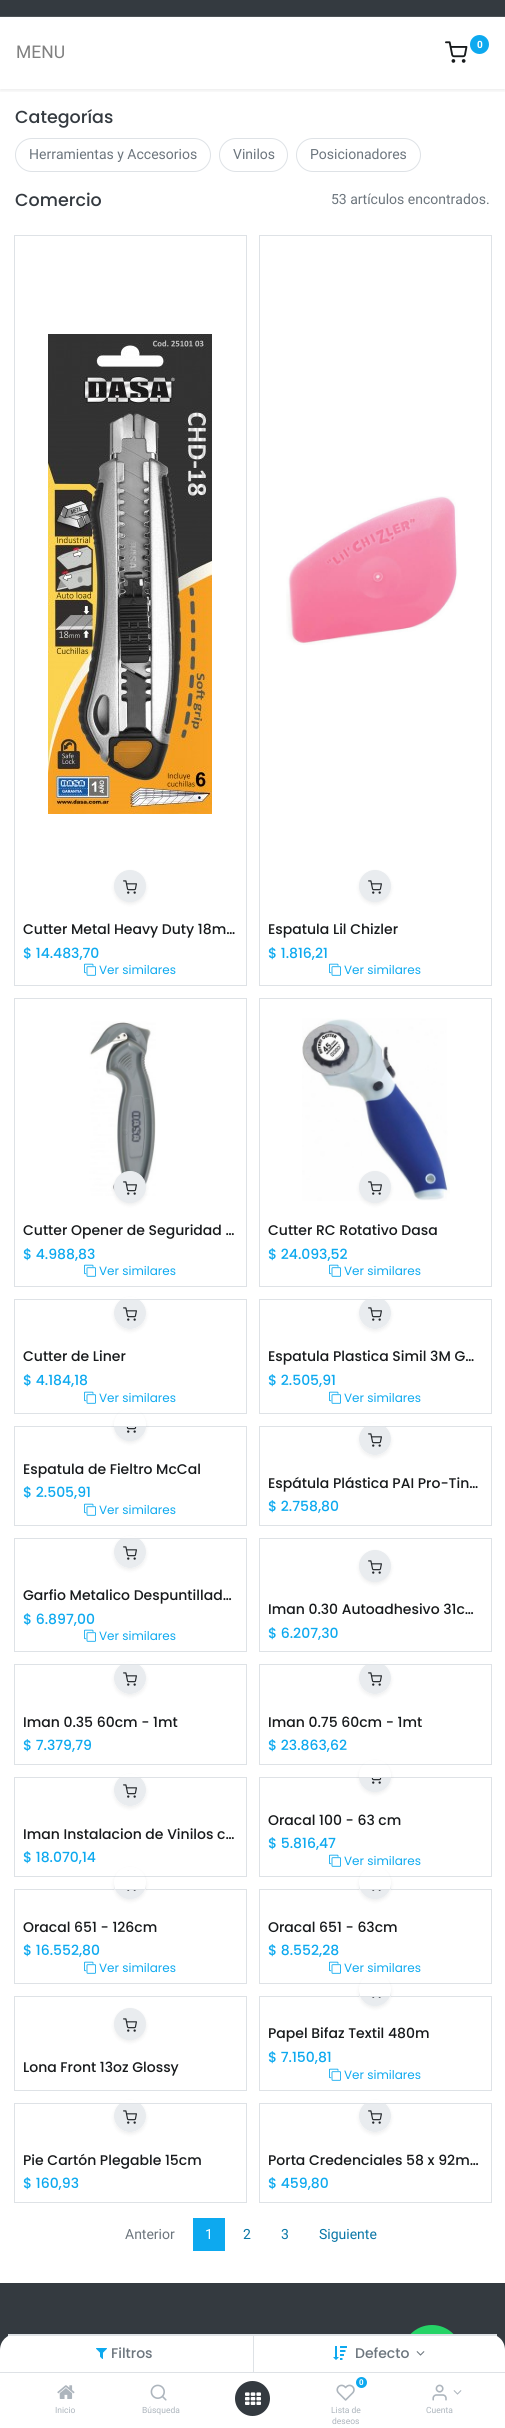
#include <cairo.h>
#include <math.h>
#include <stddef.h>


static void rgb(cairo_t *cr, int r, int g, int b)
{
	cairo_set_source_rgb(cr, r / 255.0, g / 255.0, b / 255.0);
}

static void face(cairo_t *cr, const char *family, double size, int italic, int bold)
{
	cairo_select_font_face(cr, family, italic ? CAIRO_FONT_SLANT_ITALIC : CAIRO_FONT_SLANT_NORMAL,
		bold ? CAIRO_FONT_WEIGHT_BOLD : CAIRO_FONT_WEIGHT_NORMAL);
	cairo_set_font_size(cr, size);
}

static void label(cairo_t *cr, double x, double y, const char *s)
{
	cairo_move_to(cr, x, y);
	cairo_show_text(cr, s);
}

static void rect(cairo_t *cr, double x, double y, double w, double h)
{
	cairo_rectangle(cr, x, y, w, h);
	cairo_fill(cr);
}

static void rrect(cairo_t *cr, double x, double y, double w, double h, double r)
{
	cairo_new_sub_path(cr);
	cairo_arc(cr, x + w - r, y + h - r, r, 0, M_PI / 2);
	cairo_arc(cr, x + r, y + h - r, r, M_PI / 2, M_PI);
	cairo_arc(cr, x + r, y + r, r, M_PI, 1.5 * M_PI);
	cairo_arc(cr, x + w - r, y + r, r, 1.5 * M_PI, 2 * M_PI);
	cairo_close_path(cr);
}

static void soft_shadow(cairo_t *cr, double x, double y, double w, double h, double r, double blur, double alpha)
{
	cairo_push_group_with_content(cr, CAIRO_CONTENT_ALPHA);
	cairo_set_operator(cr, CAIRO_OPERATOR_SOURCE);
	for (int i = 15; i >= -15 && fmin(w, h) + blur * i / 3 > 0; i -= 2) {
		double e = blur * i / 6;
		cairo_set_source_rgba(cr, 0, 0, 0, alpha * erfc((i - 1) / 8.5) / 2);
		rrect(cr, x - e, y - e, w + 2 * e, h + 2 * e, fmax(0, fmin(r + e + blur * .6, fmin(w, h) / 2 + e)));
		cairo_fill(cr);
	}
	cairo_pattern_t *soft = cairo_pop_group(cr);
	cairo_mask(cr, soft);
	cairo_pattern_destroy(soft);
}

static void image(cairo_t *cr, const char *path, double x, double y, double w, double h)
{
	cairo_surface_t *image = cairo_image_surface_create_from_png(path);
	cairo_save(cr);
	cairo_set_source_surface(cr, image, x, y);
	cairo_rectangle(cr, x, y, w, h);
	cairo_fill(cr);
	cairo_restore(cr);
	cairo_surface_destroy(image);
}

static void draw(cairo_t *cr) {
	rgb(cr, 255, 255, 255);
	cairo_paint(cr);
	rgb(cr, 52, 58, 64);
	rect(cr, 0, 0, 505, 16);
	rgb(cr, 76, 82, 87);
	rect(cr, 0, 16, 505, 1);
	cairo_save(cr);
	cairo_rectangle(cr, 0, 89, 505, 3);
	cairo_clip(cr);
	rgb(cr, 0, 0, 0);
	soft_shadow(cr, 0, 19, 505, 72, 0, 2, 0.07);
	cairo_restore(cr);
	face(cr, "Roboto", 17.5, 0, 0);
	rgb(cr, 128, 128, 128);
	label(cr, 16, 58, "MENU");
	image(cr, "image0.png", 445, 41, 23, 22);
	rgb(cr, 13, 169, 239);
	cairo_arc(cr, 479.5, 44.5, 9.5, 0, 2 * M_PI);
	cairo_fill(cr);
	face(cr, "Roboto", 10, 0, 1);
	rgb(cr, 255, 255, 255);
	label(cr, 477, 48, "0");
	face(cr, "Poppins Medium", 17.5, 0, 0);
	rgb(cr, 52, 58, 64);
	label(cr, 15, 123, "Categorías");
	rrect(cr, 15.5, 138.5, 195, 33, 16.5);
	rgb(cr, 222, 226, 230);
	cairo_set_line_width(cr, 1);
	cairo_stroke(cr);
	face(cr, "Roboto", 14, 0, 0);
	rgb(cr, 108, 117, 125);
	label(cr, 29, 159, "Herramientas y Accesorios");
	rrect(cr, 219.5, 138.5, 68, 33, 16.5);
	rgb(cr, 222, 226, 230);
	cairo_stroke(cr);
	rgb(cr, 108, 117, 125);
	label(cr, 233, 159, "Vinilos");
	rrect(cr, 296.5, 138.5, 124, 33, 16.5);
	rgb(cr, 222, 226, 230);
	cairo_stroke(cr);
	rgb(cr, 108, 117, 125);
	label(cr, 310, 159, "Posicionadores");
	face(cr, "Poppins Medium", 17.5, 0, 0);
	rgb(cr, 52, 58, 64);
	label(cr, 15, 206, "Comercio");
	face(cr, "Roboto", 14, 0, 0);
	rgb(cr, 108, 117, 125);
	label(cr, 331, 204, "53 artículos encontrados.");
	cairo_rectangle(cr, 14.5, 235.5, 232, 750);
	rgb(cr, 222, 226, 230);
	cairo_stroke(cr);
	image(cr, "image1.png", 48, 334, 164, 480);
	rgb(cr, 0, 0, 0);
	soft_shadow(cr, 114, 872, 32, 32, 16, 2, 0.07);
	rgb(cr, 233, 236, 239);
	cairo_arc(cr, 130, 886, 15.5, 0, 2 * M_PI);
	cairo_fill_preserve(cr);
	cairo_stroke(cr);
	image(cr, "image2.png", 123, 880, 14, 14);
	face(cr, "Poppins Medium", 14, 0, 0);
	rgb(cr, 23, 26, 28);
	label(cr, 23, 934, "Cutter Metal Heavy Duty 18m…");
	rgb(cr, 13, 169, 239);
	label(cr, 23, 958, "$ 14.483,70");
	image(cr, "image3.png", 84, 963, 12, 13);
	face(cr, "Poppins", 12, 0, 0);
	label(cr, 99, 974, "Ver similares");
	cairo_rectangle(cr, 259.5, 235.5, 232, 750);
	rgb(cr, 222, 226, 230);
	cairo_stroke(cr);
	image(cr, "image4.png", 286, 496, 172, 149);
	rgb(cr, 0, 0, 0);
	soft_shadow(cr, 359, 872, 32, 32, 16, 2, 0.07);
	rgb(cr, 233, 236, 239);
	cairo_arc(cr, 375, 886, 15.5, 0, 2 * M_PI);
	cairo_fill_preserve(cr);
	cairo_stroke(cr);
	image(cr, "image2.png", 368, 880, 14, 14);
	face(cr, "Poppins Medium", 14, 0, 0);
	rgb(cr, 23, 26, 28);
	label(cr, 268, 934, "Espatula Lil Chizler");
	rgb(cr, 13, 169, 239);
	label(cr, 268, 958, "$ 1.816,21");
	image(cr, "image3.png", 329, 963, 12, 13);
	face(cr, "Poppins", 12, 0, 0);
	label(cr, 344, 974, "Ver similares");
	cairo_rectangle(cr, 14.5, 998.5, 232, 288);
	rgb(cr, 222, 226, 230);
	cairo_stroke(cr);
	image(cr, "image5.png", 89, 1021, 67, 175);
	rgb(cr, 0, 0, 0);
	soft_shadow(cr, 114, 1173, 32, 32, 16, 2, 0.07);
	rgb(cr, 233, 236, 239);
	cairo_arc(cr, 130, 1187, 15.5, 0, 2 * M_PI);
	cairo_fill_preserve(cr);
	cairo_stroke(cr);
	image(cr, "image2.png", 123, 1181, 14, 14);
	face(cr, "Poppins Medium", 14, 0, 0);
	rgb(cr, 23, 26, 28);
	label(cr, 23, 1235, "Cutter Opener de Seguridad …");
	rgb(cr, 13, 169, 239);
	label(cr, 23, 1259, "$ 4.988,83");
	image(cr, "image3.png", 84, 1264, 12, 13);
	face(cr, "Poppins", 12, 0, 0);
	label(cr, 99, 1275, "Ver similares");
	cairo_rectangle(cr, 259.5, 998.5, 232, 288);
	rgb(cr, 222, 226, 230);
	cairo_stroke(cr);
	image(cr, "image6.png", 302, 1018, 148, 183);
	rgb(cr, 0, 0, 0);
	soft_shadow(cr, 359, 1173, 32, 32, 16, 2, 0.07);
	rgb(cr, 233, 236, 239);
	cairo_arc(cr, 375, 1187, 15.5, 0, 2 * M_PI);
	cairo_fill_preserve(cr);
	cairo_stroke(cr);
	image(cr, "image2.png", 368, 1181, 14, 14);
	face(cr, "Poppins Medium", 14, 0, 0);
	rgb(cr, 23, 26, 28);
	label(cr, 268, 1235, "Cutter RC Rotativo Dasa");
	rgb(cr, 13, 169, 239);
	label(cr, 268, 1259, "$ 24.093,52");
	image(cr, "image3.png", 329, 1264, 12, 13);
	face(cr, "Poppins", 12, 0, 0);
	label(cr, 344, 1275, "Ver similares");
	cairo_rectangle(cr, 14.5, 1299.5, 232, 114);
	rgb(cr, 222, 226, 230);
	cairo_stroke(cr);
	cairo_save(cr);
	cairo_set_fill_rule(cr, CAIRO_FILL_RULE_EVEN_ODD);
	cairo_new_path(cr);
	cairo_move_to(cr, 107, 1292);
	cairo_line_to(cr, 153, 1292);
	cairo_line_to(cr, 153, 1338);
	cairo_line_to(cr, 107, 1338);
	cairo_close_path(cr);
	cairo_move_to(cr, 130, 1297);
	cairo_curve_to(cr, 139, 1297, 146, 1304, 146, 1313);
	cairo_curve_to(cr, 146, 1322, 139, 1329, 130, 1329);
	cairo_curve_to(cr, 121, 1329, 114, 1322, 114, 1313);
	cairo_curve_to(cr, 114, 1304, 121, 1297, 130, 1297);
	cairo_close_path(cr);
	cairo_clip(cr);
	rgb(cr, 0, 0, 0);
	soft_shadow(cr, 114, 1299, 32, 32, 16, 2, 0.07);
	cairo_restore(cr);
	cairo_save(cr);
	cairo_rectangle(cr, 15, 1300, 231, 113);
	cairo_clip(cr);
	rgb(cr, 233, 236, 239);
	cairo_arc(cr, 130, 1313, 15.5, 0, 2 * M_PI);
	cairo_fill_preserve(cr);
	cairo_stroke(cr);
	cairo_restore(cr);
	image(cr, "image2.png", 123, 1307, 14, 14);
	face(cr, "Poppins Medium", 14, 0, 0);
	rgb(cr, 23, 26, 28);
	label(cr, 23, 1361, "Cutter de Liner");
	rgb(cr, 13, 169, 239);
	label(cr, 23, 1385, "$ 4.184,18");
	image(cr, "image3.png", 84, 1391, 12, 13);
	face(cr, "Poppins", 12, 0, 0);
	label(cr, 99, 1402, "Ver similares");
	cairo_rectangle(cr, 259.5, 1299.5, 232, 114);
	rgb(cr, 222, 226, 230);
	cairo_stroke(cr);
	cairo_save(cr);
	cairo_set_fill_rule(cr, CAIRO_FILL_RULE_EVEN_ODD);
	cairo_new_path(cr);
	cairo_move_to(cr, 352, 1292);
	cairo_line_to(cr, 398, 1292);
	cairo_line_to(cr, 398, 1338);
	cairo_line_to(cr, 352, 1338);
	cairo_close_path(cr);
	cairo_move_to(cr, 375, 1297);
	cairo_curve_to(cr, 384, 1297, 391, 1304, 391, 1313);
	cairo_curve_to(cr, 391, 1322, 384, 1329, 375, 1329);
	cairo_curve_to(cr, 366, 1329, 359, 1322, 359, 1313);
	cairo_curve_to(cr, 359, 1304, 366, 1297, 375, 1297);
	cairo_close_path(cr);
	cairo_clip(cr);
	rgb(cr, 0, 0, 0);
	soft_shadow(cr, 359, 1299, 32, 32, 16, 2, 0.07);
	cairo_restore(cr);
	cairo_save(cr);
	cairo_rectangle(cr, 260, 1300, 231, 113);
	cairo_clip(cr);
	rgb(cr, 233, 236, 239);
	cairo_arc(cr, 375, 1313, 15.5, 0, 2 * M_PI);
	cairo_fill_preserve(cr);
	cairo_stroke(cr);
	cairo_restore(cr);
	image(cr, "image2.png", 368, 1307, 14, 14);
	face(cr, "Poppins Medium", 14, 0, 0);
	rgb(cr, 23, 26, 28);
	label(cr, 268, 1361, "Espatula Plastica Simil 3M G…");
	rgb(cr, 13, 169, 239);
	label(cr, 268, 1385, "$ 2.505,91");
	image(cr, "image3.png", 329, 1391, 12, 13);
	face(cr, "Poppins", 12, 0, 0);
	label(cr, 344, 1402, "Ver similares");
	cairo_rectangle(cr, 14.5, 1426.5, 232, 99);
	rgb(cr, 222, 226, 230);
	cairo_stroke(cr);
	cairo_save(cr);
	cairo_set_fill_rule(cr, CAIRO_FILL_RULE_EVEN_ODD);
	cairo_new_path(cr);
	cairo_move_to(cr, 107, 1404);
	cairo_line_to(cr, 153, 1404);
	cairo_line_to(cr, 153, 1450);
	cairo_line_to(cr, 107, 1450);
	cairo_close_path(cr);
	cairo_move_to(cr, 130, 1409);
	cairo_curve_to(cr, 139, 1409, 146, 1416, 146, 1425);
	cairo_curve_to(cr, 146, 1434, 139, 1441, 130, 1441);
	cairo_curve_to(cr, 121, 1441, 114, 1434, 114, 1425);
	cairo_curve_to(cr, 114, 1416, 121, 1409, 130, 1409);
	cairo_close_path(cr);
	cairo_clip(cr);
	rgb(cr, 0, 0, 0);
	soft_shadow(cr, 114, 1411, 32, 32, 16, 2, 0.07);
	cairo_restore(cr);
	rgb(cr, 233, 236, 239);
	cairo_new_path(cr);
	cairo_move_to(cr, 114, 1427);
	cairo_line_to(cr, 146, 1427);
	cairo_line_to(cr, 146, 1425);
	cairo_curve_to(cr, 146, 1434, 139, 1441, 130, 1441);
	cairo_curve_to(cr, 121, 1441, 114, 1434, 114, 1425);
	cairo_close_path(cr);
	cairo_fill(cr);
	cairo_save(cr);
	cairo_rectangle(cr, 15, 1427, 231, 98);
	cairo_clip(cr);
	cairo_arc(cr, 130, 1425, 15.5, 0, 2 * M_PI);
	cairo_stroke(cr);
	cairo_restore(cr);
	image(cr, "image7.png", 126, 1427, 11, 6);
	face(cr, "Poppins Medium", 14, 0, 0);
	rgb(cr, 23, 26, 28);
	label(cr, 23, 1474, "Espatula de Fieltro McCal");
	rgb(cr, 13, 169, 239);
	label(cr, 23, 1497, "$ 2.505,91");
	image(cr, "image3.png", 84, 1503, 12, 13);
	face(cr, "Poppins", 12, 0, 0);
	label(cr, 99, 1514, "Ver similares");
	cairo_rectangle(cr, 259.5, 1426.5, 232, 99);
	rgb(cr, 222, 226, 230);
	cairo_stroke(cr);
	cairo_save(cr);
	cairo_set_fill_rule(cr, CAIRO_FILL_RULE_EVEN_ODD);
	cairo_new_path(cr);
	cairo_move_to(cr, 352, 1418);
	cairo_line_to(cr, 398, 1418);
	cairo_line_to(cr, 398, 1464);
	cairo_line_to(cr, 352, 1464);
	cairo_close_path(cr);
	cairo_move_to(cr, 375, 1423);
	cairo_curve_to(cr, 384, 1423, 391, 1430, 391, 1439);
	cairo_curve_to(cr, 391, 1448, 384, 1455, 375, 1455);
	cairo_curve_to(cr, 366, 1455, 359, 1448, 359, 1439);
	cairo_curve_to(cr, 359, 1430, 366, 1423, 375, 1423);
	cairo_close_path(cr);
	cairo_clip(cr);
	rgb(cr, 0, 0, 0);
	soft_shadow(cr, 359, 1425, 32, 32, 16, 2, 0.07);
	cairo_restore(cr);
	cairo_save(cr);
	cairo_rectangle(cr, 260, 1427, 231, 98);
	cairo_clip(cr);
	rgb(cr, 233, 236, 239);
	cairo_arc(cr, 375, 1439, 15.5, 0, 2 * M_PI);
	cairo_fill_preserve(cr);
	cairo_stroke(cr);
	cairo_restore(cr);
	image(cr, "image2.png", 368, 1433, 14, 14);
	face(cr, "Poppins Medium", 14, 0, 0);
	rgb(cr, 23, 26, 28);
	label(cr, 268, 1488, "Espátula Plástica PAI Pro-Tin…");
	rgb(cr, 13, 169, 239);
	label(cr, 268, 1511, "$ 2.758,80");
	cairo_rectangle(cr, 14.5, 1538.5, 232, 113);
	rgb(cr, 222, 226, 230);
	cairo_stroke(cr);
	cairo_save(cr);
	cairo_set_fill_rule(cr, CAIRO_FILL_RULE_EVEN_ODD);
	cairo_new_path(cr);
	cairo_move_to(cr, 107, 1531);
	cairo_line_to(cr, 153, 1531);
	cairo_line_to(cr, 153, 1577);
	cairo_line_to(cr, 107, 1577);
	cairo_close_path(cr);
	cairo_move_to(cr, 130, 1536);
	cairo_curve_to(cr, 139, 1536, 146, 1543, 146, 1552);
	cairo_curve_to(cr, 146, 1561, 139, 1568, 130, 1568);
	cairo_curve_to(cr, 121, 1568, 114, 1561, 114, 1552);
	cairo_curve_to(cr, 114, 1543, 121, 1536, 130, 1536);
	cairo_close_path(cr);
	cairo_clip(cr);
	rgb(cr, 0, 0, 0);
	soft_shadow(cr, 114, 1538, 32, 32, 16, 2, 0.07);
	cairo_restore(cr);
	cairo_save(cr);
	cairo_rectangle(cr, 15, 1539, 231, 112);
	cairo_clip(cr);
	rgb(cr, 233, 236, 239);
	cairo_arc(cr, 130, 1552, 15.5, 0, 2 * M_PI);
	cairo_fill_preserve(cr);
	cairo_stroke(cr);
	cairo_restore(cr);
	image(cr, "image2.png", 123, 1546, 14, 14);
	rgb(cr, 23, 26, 28);
	label(cr, 23, 1600, "Garfio Metalico Despuntillad…");
	rgb(cr, 13, 169, 239);
	label(cr, 23, 1624, "$ 6.897,00");
	image(cr, "image3.png", 84, 1629, 12, 13);
	face(cr, "Poppins", 12, 0, 0);
	label(cr, 99, 1640, "Ver similares");
	cairo_rectangle(cr, 259.5, 1538.5, 232, 113);
	rgb(cr, 222, 226, 230);
	cairo_stroke(cr);
	rgb(cr, 0, 0, 0);
	soft_shadow(cr, 359, 1552, 32, 32, 16, 2, 0.07);
	rgb(cr, 233, 236, 239);
	cairo_arc(cr, 375, 1566, 15.5, 0, 2 * M_PI);
	cairo_fill_preserve(cr);
	cairo_stroke(cr);
	image(cr, "image2.png", 368, 1560, 14, 14);
	face(cr, "Poppins Medium", 14, 0, 0);
	rgb(cr, 23, 26, 28);
	label(cr, 268, 1614, "Iman 0.30 Autoadhesivo 31c…");
	rgb(cr, 13, 169, 239);
	label(cr, 268, 1638, "$ 6.207,30");
	cairo_rectangle(cr, 14.5, 1664.5, 232, 100);
	rgb(cr, 222, 226, 230);
	cairo_stroke(cr);
	cairo_save(cr);
	cairo_set_fill_rule(cr, CAIRO_FILL_RULE_EVEN_ODD);
	cairo_new_path(cr);
	cairo_move_to(cr, 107, 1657);
	cairo_line_to(cr, 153, 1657);
	cairo_line_to(cr, 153, 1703);
	cairo_line_to(cr, 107, 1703);
	cairo_close_path(cr);
	cairo_move_to(cr, 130, 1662);
	cairo_curve_to(cr, 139, 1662, 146, 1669, 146, 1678);
	cairo_curve_to(cr, 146, 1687, 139, 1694, 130, 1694);
	cairo_curve_to(cr, 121, 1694, 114, 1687, 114, 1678);
	cairo_curve_to(cr, 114, 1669, 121, 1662, 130, 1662);
	cairo_close_path(cr);
	cairo_clip(cr);
	rgb(cr, 0, 0, 0);
	soft_shadow(cr, 114, 1664, 32, 32, 16, 2, 0.07);
	cairo_restore(cr);
	cairo_save(cr);
	cairo_rectangle(cr, 15, 1665, 231, 99);
	cairo_clip(cr);
	rgb(cr, 233, 236, 239);
	cairo_arc(cr, 130, 1678, 15.5, 0, 2 * M_PI);
	cairo_fill_preserve(cr);
	cairo_stroke(cr);
	cairo_restore(cr);
	image(cr, "image2.png", 123, 1672, 14, 14);
	rgb(cr, 23, 26, 28);
	label(cr, 23, 1727, "Iman 0.35 60cm - 1mt");
	rgb(cr, 13, 169, 239);
	label(cr, 23, 1750, "$ 7.379,79");
	cairo_rectangle(cr, 259.5, 1664.5, 232, 100);
	rgb(cr, 222, 226, 230);
	cairo_stroke(cr);
	cairo_save(cr);
	cairo_set_fill_rule(cr, CAIRO_FILL_RULE_EVEN_ODD);
	cairo_new_path(cr);
	cairo_move_to(cr, 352, 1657);
	cairo_line_to(cr, 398, 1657);
	cairo_line_to(cr, 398, 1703);
	cairo_line_to(cr, 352, 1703);
	cairo_close_path(cr);
	cairo_move_to(cr, 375, 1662);
	cairo_curve_to(cr, 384, 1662, 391, 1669, 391, 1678);
	cairo_curve_to(cr, 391, 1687, 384, 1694, 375, 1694);
	cairo_curve_to(cr, 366, 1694, 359, 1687, 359, 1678);
	cairo_curve_to(cr, 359, 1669, 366, 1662, 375, 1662);
	cairo_close_path(cr);
	cairo_clip(cr);
	rgb(cr, 0, 0, 0);
	soft_shadow(cr, 359, 1664, 32, 32, 16, 2, 0.07);
	cairo_restore(cr);
	cairo_save(cr);
	cairo_rectangle(cr, 260, 1665, 231, 99);
	cairo_clip(cr);
	rgb(cr, 233, 236, 239);
	cairo_arc(cr, 375, 1678, 15.5, 0, 2 * M_PI);
	cairo_fill_preserve(cr);
	cairo_stroke(cr);
	cairo_restore(cr);
	image(cr, "image2.png", 368, 1672, 14, 14);
	rgb(cr, 23, 26, 28);
	label(cr, 268, 1727, "Iman 0.75 60cm - 1mt");
	rgb(cr, 13, 169, 239);
	label(cr, 268, 1750, "$ 23.863,62");
	cairo_rectangle(cr, 14.5, 1777.5, 232, 99);
	rgb(cr, 222, 226, 230);
	cairo_stroke(cr);
	cairo_save(cr);
	cairo_set_fill_rule(cr, CAIRO_FILL_RULE_EVEN_ODD);
	cairo_new_path(cr);
	cairo_move_to(cr, 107, 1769);
	cairo_line_to(cr, 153, 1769);
	cairo_line_to(cr, 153, 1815);
	cairo_line_to(cr, 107, 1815);
	cairo_close_path(cr);
	cairo_move_to(cr, 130, 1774);
	cairo_curve_to(cr, 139, 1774, 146, 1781, 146, 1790);
	cairo_curve_to(cr, 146, 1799, 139, 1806, 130, 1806);
	cairo_curve_to(cr, 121, 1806, 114, 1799, 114, 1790);
	cairo_curve_to(cr, 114, 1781, 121, 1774, 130, 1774);
	cairo_close_path(cr);
	cairo_clip(cr);
	rgb(cr, 0, 0, 0);
	soft_shadow(cr, 114, 1776, 32, 32, 16, 2, 0.07);
	cairo_restore(cr);
	cairo_save(cr);
	cairo_rectangle(cr, 15, 1778, 231, 98);
	cairo_clip(cr);
	rgb(cr, 233, 236, 239);
	cairo_arc(cr, 130, 1790, 15.5, 0, 2 * M_PI);
	cairo_fill_preserve(cr);
	cairo_stroke(cr);
	cairo_restore(cr);
	image(cr, "image2.png", 123, 1784, 14, 14);
	rgb(cr, 23, 26, 28);
	label(cr, 23, 1839, "Iman Instalacion de Vinilos c…");
	rgb(cr, 13, 169, 239);
	label(cr, 23, 1862, "$ 18.070,14");
	cairo_rectangle(cr, 259.5, 1777.5, 232, 99);
	rgb(cr, 222, 226, 230);
	cairo_stroke(cr);
	cairo_save(cr);
	cairo_set_fill_rule(cr, CAIRO_FILL_RULE_EVEN_ODD);
	cairo_new_path(cr);
	cairo_move_to(cr, 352, 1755);
	cairo_line_to(cr, 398, 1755);
	cairo_line_to(cr, 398, 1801);
	cairo_line_to(cr, 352, 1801);
	cairo_close_path(cr);
	cairo_move_to(cr, 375, 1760);
	cairo_curve_to(cr, 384, 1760, 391, 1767, 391, 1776);
	cairo_curve_to(cr, 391, 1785, 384, 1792, 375, 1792);
	cairo_curve_to(cr, 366, 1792, 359, 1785, 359, 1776);
	cairo_curve_to(cr, 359, 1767, 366, 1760, 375, 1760);
	cairo_close_path(cr);
	cairo_clip(cr);
	rgb(cr, 0, 0, 0);
	soft_shadow(cr, 359, 1762, 32, 32, 16, 2, 0.07);
	cairo_restore(cr);
	rgb(cr, 233, 236, 239);
	cairo_new_path(cr);
	cairo_move_to(cr, 359, 1778);
	cairo_line_to(cr, 391, 1778);
	cairo_line_to(cr, 391, 1776);
	cairo_curve_to(cr, 391, 1785, 384, 1792, 375, 1792);
	cairo_curve_to(cr, 366, 1792, 359, 1785, 359, 1776);
	cairo_close_path(cr);
	cairo_fill(cr);
	cairo_save(cr);
	cairo_rectangle(cr, 260, 1778, 231, 98);
	cairo_clip(cr);
	cairo_arc(cr, 375, 1776, 15.5, 0, 2 * M_PI);
	cairo_stroke(cr);
	cairo_restore(cr);
	image(cr, "image7.png", 371, 1778, 11, 6);
	rgb(cr, 23, 26, 28);
	label(cr, 268, 1825, "Oracal 100 - 63 cm");
	rgb(cr, 13, 169, 239);
	label(cr, 268, 1848, "$ 5.816,47");
	image(cr, "image3.png", 329, 1854, 12, 13);
	face(cr, "Poppins", 12, 0, 0);
	label(cr, 344, 1865, "Ver similares");
	cairo_rectangle(cr, 14.5, 1889.5, 232, 94);
	rgb(cr, 222, 226, 230);
	cairo_stroke(cr);
	cairo_save(cr);
	cairo_set_fill_rule(cr, CAIRO_FILL_RULE_EVEN_ODD);
	cairo_new_path(cr);
	cairo_move_to(cr, 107, 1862);
	cairo_line_to(cr, 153, 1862);
	cairo_line_to(cr, 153, 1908);
	cairo_line_to(cr, 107, 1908);
	cairo_close_path(cr);
	cairo_move_to(cr, 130, 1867);
	cairo_curve_to(cr, 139, 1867, 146, 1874, 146, 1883);
	cairo_curve_to(cr, 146, 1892, 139, 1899, 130, 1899);
	cairo_curve_to(cr, 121, 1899, 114, 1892, 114, 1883);
	cairo_curve_to(cr, 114, 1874, 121, 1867, 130, 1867);
	cairo_close_path(cr);
	cairo_clip(cr);
	rgb(cr, 0, 0, 0);
	soft_shadow(cr, 114, 1869, 32, 32, 16, 2, 0.07);
	cairo_restore(cr);
	rgb(cr, 233, 236, 239);
	cairo_new_path(cr);
	cairo_move_to(cr, 114, 1890);
	cairo_line_to(cr, 146, 1890);
	cairo_line_to(cr, 146, 1883);
	cairo_curve_to(cr, 146, 1892, 139, 1899, 130, 1899);
	cairo_curve_to(cr, 121, 1899, 114, 1892, 114, 1883);
	cairo_close_path(cr);
	cairo_fill(cr);
	cairo_save(cr);
	cairo_rectangle(cr, 15, 1890, 231, 93);
	cairo_clip(cr);
	cairo_arc(cr, 130, 1883, 15.5, 0, 2 * M_PI);
	cairo_stroke(cr);
	cairo_restore(cr);
	image(cr, "image8.png", 127, 1890, 9, 1);
	face(cr, "Poppins Medium", 14, 0, 0);
	rgb(cr, 23, 26, 28);
	label(cr, 23, 1932, "Oracal 651 - 126cm");
	rgb(cr, 13, 169, 239);
	label(cr, 23, 1955, "$ 16.552,80");
	image(cr, "image3.png", 84, 1961, 12, 13);
	face(cr, "Poppins", 12, 0, 0);
	label(cr, 99, 1972, "Ver similares");
	cairo_rectangle(cr, 259.5, 1889.5, 232, 94);
	rgb(cr, 222, 226, 230);
	cairo_stroke(cr);
	cairo_save(cr);
	cairo_set_fill_rule(cr, CAIRO_FILL_RULE_EVEN_ODD);
	cairo_new_path(cr);
	cairo_move_to(cr, 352, 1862);
	cairo_line_to(cr, 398, 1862);
	cairo_line_to(cr, 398, 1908);
	cairo_line_to(cr, 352, 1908);
	cairo_close_path(cr);
	cairo_move_to(cr, 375, 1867);
	cairo_curve_to(cr, 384, 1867, 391, 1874, 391, 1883);
	cairo_curve_to(cr, 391, 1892, 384, 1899, 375, 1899);
	cairo_curve_to(cr, 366, 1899, 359, 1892, 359, 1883);
	cairo_curve_to(cr, 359, 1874, 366, 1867, 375, 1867);
	cairo_close_path(cr);
	cairo_clip(cr);
	rgb(cr, 0, 0, 0);
	soft_shadow(cr, 359, 1869, 32, 32, 16, 2, 0.07);
	cairo_restore(cr);
	rgb(cr, 233, 236, 239);
	cairo_new_path(cr);
	cairo_move_to(cr, 359, 1890);
	cairo_line_to(cr, 391, 1890);
	cairo_line_to(cr, 391, 1883);
	cairo_curve_to(cr, 391, 1892, 384, 1899, 375, 1899);
	cairo_curve_to(cr, 366, 1899, 359, 1892, 359, 1883);
	cairo_close_path(cr);
	cairo_fill(cr);
	cairo_save(cr);
	cairo_rectangle(cr, 260, 1890, 231, 93);
	cairo_clip(cr);
	cairo_arc(cr, 375, 1883, 15.5, 0, 2 * M_PI);
	cairo_stroke(cr);
	cairo_restore(cr);
	image(cr, "image8.png", 372, 1890, 9, 1);
	face(cr, "Poppins Medium", 14, 0, 0);
	rgb(cr, 23, 26, 28);
	label(cr, 268, 1932, "Oracal 651 - 63cm");
	rgb(cr, 13, 169, 239);
	label(cr, 268, 1955, "$ 8.552,28");
	image(cr, "image3.png", 329, 1961, 12, 13);
	face(cr, "Poppins", 12, 0, 0);
	label(cr, 344, 1972, "Ver similares");
	cairo_rectangle(cr, 14.5, 1996.5, 232, 94);
	rgb(cr, 222, 226, 230);
	cairo_stroke(cr);
	rgb(cr, 0, 0, 0);
	soft_shadow(cr, 114, 2010, 32, 32, 16, 2, 0.07);
	rgb(cr, 233, 236, 239);
	cairo_arc(cr, 130, 2024, 15.5, 0, 2 * M_PI);
	cairo_fill_preserve(cr);
	cairo_stroke(cr);
	image(cr, "image2.png", 123, 2018, 14, 14);
	face(cr, "Poppins Medium", 14, 0, 0);
	rgb(cr, 23, 26, 28);
	label(cr, 23, 2072, "Lona Front 13oz Glossy");
	cairo_rectangle(cr, 259.5, 1996.5, 232, 94);
	rgb(cr, 222, 226, 230);
	cairo_stroke(cr);
	cairo_save(cr);
	cairo_set_fill_rule(cr, CAIRO_FILL_RULE_EVEN_ODD);
	cairo_new_path(cr);
	cairo_move_to(cr, 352, 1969);
	cairo_line_to(cr, 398, 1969);
	cairo_line_to(cr, 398, 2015);
	cairo_line_to(cr, 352, 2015);
	cairo_close_path(cr);
	cairo_move_to(cr, 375, 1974);
	cairo_curve_to(cr, 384, 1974, 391, 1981, 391, 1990);
	cairo_curve_to(cr, 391, 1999, 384, 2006, 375, 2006);
	cairo_curve_to(cr, 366, 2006, 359, 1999, 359, 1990);
	cairo_curve_to(cr, 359, 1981, 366, 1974, 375, 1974);
	cairo_close_path(cr);
	cairo_clip(cr);
	rgb(cr, 0, 0, 0);
	soft_shadow(cr, 359, 1976, 32, 32, 16, 2, 0.07);
	cairo_restore(cr);
	rgb(cr, 233, 236, 239);
	cairo_new_path(cr);
	cairo_move_to(cr, 359, 1997);
	cairo_line_to(cr, 391, 1997);
	cairo_line_to(cr, 391, 1990);
	cairo_curve_to(cr, 391, 1999, 384, 2006, 375, 2006);
	cairo_curve_to(cr, 366, 2006, 359, 1999, 359, 1990);
	cairo_close_path(cr);
	cairo_fill(cr);
	cairo_save(cr);
	cairo_rectangle(cr, 260, 1997, 231, 93);
	cairo_clip(cr);
	cairo_arc(cr, 375, 1990, 15.5, 0, 2 * M_PI);
	cairo_stroke(cr);
	cairo_restore(cr);
	image(cr, "image8.png", 372, 1997, 9, 1);
	rgb(cr, 23, 26, 28);
	label(cr, 268, 2038, "Papel Bifaz Textil 480m");
	rgb(cr, 13, 169, 239);
	label(cr, 268, 2062, "$ 7.150,81");
	image(cr, "image3.png", 329, 2068, 12, 13);
	face(cr, "Poppins", 12, 0, 0);
	label(cr, 344, 2079, "Ver similares");
	cairo_rectangle(cr, 14.5, 2103.5, 232, 99);
	rgb(cr, 222, 226, 230);
	cairo_stroke(cr);
	cairo_save(cr);
	cairo_set_fill_rule(cr, CAIRO_FILL_RULE_EVEN_ODD);
	cairo_new_path(cr);
	cairo_move_to(cr, 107, 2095);
	cairo_line_to(cr, 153, 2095);
	cairo_line_to(cr, 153, 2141);
	cairo_line_to(cr, 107, 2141);
	cairo_close_path(cr);
	cairo_move_to(cr, 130, 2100);
	cairo_curve_to(cr, 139, 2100, 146, 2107, 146, 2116);
	cairo_curve_to(cr, 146, 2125, 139, 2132, 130, 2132);
	cairo_curve_to(cr, 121, 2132, 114, 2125, 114, 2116);
	cairo_curve_to(cr, 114, 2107, 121, 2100, 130, 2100);
	cairo_close_path(cr);
	cairo_clip(cr);
	rgb(cr, 0, 0, 0);
	soft_shadow(cr, 114, 2102, 32, 32, 16, 2, 0.07);
	cairo_restore(cr);
	cairo_save(cr);
	cairo_rectangle(cr, 15, 2104, 231, 98);
	cairo_clip(cr);
	rgb(cr, 233, 236, 239);
	cairo_arc(cr, 130, 2116, 15.5, 0, 2 * M_PI);
	cairo_fill_preserve(cr);
	cairo_stroke(cr);
	cairo_restore(cr);
	image(cr, "image2.png", 123, 2110, 14, 14);
	face(cr, "Poppins Medium", 14, 0, 0);
	rgb(cr, 23, 26, 28);
	label(cr, 23, 2165, "Pie Cartón Plegable 15cm");
	rgb(cr, 13, 169, 239);
	label(cr, 23, 2188, "$ 160,93");
	cairo_rectangle(cr, 259.5, 2103.5, 232, 99);
	rgb(cr, 222, 226, 230);
	cairo_stroke(cr);
	cairo_save(cr);
	cairo_set_fill_rule(cr, CAIRO_FILL_RULE_EVEN_ODD);
	cairo_new_path(cr);
	cairo_move_to(cr, 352, 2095);
	cairo_line_to(cr, 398, 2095);
	cairo_line_to(cr, 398, 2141);
	cairo_line_to(cr, 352, 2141);
	cairo_close_path(cr);
	cairo_move_to(cr, 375, 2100);
	cairo_curve_to(cr, 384, 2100, 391, 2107, 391, 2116);
	cairo_curve_to(cr, 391, 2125, 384, 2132, 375, 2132);
	cairo_curve_to(cr, 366, 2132, 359, 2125, 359, 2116);
	cairo_curve_to(cr, 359, 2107, 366, 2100, 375, 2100);
	cairo_close_path(cr);
	cairo_clip(cr);
	rgb(cr, 0, 0, 0);
	soft_shadow(cr, 359, 2102, 32, 32, 16, 2, 0.07);
	cairo_restore(cr);
	cairo_save(cr);
	cairo_rectangle(cr, 260, 2104, 231, 98);
	cairo_clip(cr);
	rgb(cr, 233, 236, 239);
	cairo_arc(cr, 375, 2116, 15.5, 0, 2 * M_PI);
	cairo_fill_preserve(cr);
	cairo_stroke(cr);
	cairo_restore(cr);
	image(cr, "image2.png", 368, 2110, 14, 14);
	rgb(cr, 23, 26, 28);
	label(cr, 268, 2165, "Porta Credenciales 58 x 92m…");
	rgb(cr, 13, 169, 239);
	label(cr, 268, 2188, "$ 459,80");
	face(cr, "Roboto", 14, 0, 0);
	rgb(cr, 108, 117, 125);
	label(cr, 125, 2239, "Anterior");
	rgb(cr, 13, 169, 239);
	rect(cr, 193, 2218, 32, 33);
	rgb(cr, 255, 255, 255);
	label(cr, 205, 2239, "1");
	rgb(cr, 9, 118, 166);
	label(cr, 243, 2239, "2");
	label(cr, 281, 2239, "3");
	label(cr, 319, 2239, "Siguiente");
	rgb(cr, 52, 58, 64);
	rect(cr, 0, 2283, 505, 67);
	rgb(cr, 37, 211, 102);
	cairo_new_path(cr);
	cairo_arc(cr, 432, 2355, 30, 0, 2 * M_PI);
	cairo_fill(cr);
	rgb(cr, 255, 255, 255);
	cairo_new_path(cr);
	cairo_move_to(cr, 16, 2334);
	cairo_line_to(cr, 489, 2334);
	cairo_curve_to(cr, 498, 2334, 505, 2341, 505, 2350);
	cairo_line_to(cr, 505, 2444);
	cairo_line_to(cr, 0, 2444);
	cairo_line_to(cr, 0, 2350);
	cairo_curve_to(cr, 0, 2341, 7, 2334, 16, 2334);
	cairo_close_path(cr);
	cairo_fill(cr);
	rgb(cr, 222, 226, 230);
	rect(cr, 8, 2334, 489, 2);
	rect(cr, 0, 2372, 505, 1);
	image(cr, "image9.png", 96, 2348, 11, 11);
	face(cr, "Poppins Medium", 14, 0, 0);
	rgb(cr, 108, 117, 125);
	label(cr, 111, 2358, "Filtros");
	rgb(cr, 222, 226, 230);
	rect(cr, 253, 2336, 1, 36);
	image(cr, "image10.png", 333, 2346, 14, 14);
	rgb(cr, 108, 117, 125);
	label(cr, 355, 2358, "Defecto");
	image(cr, "image11.png", 416, 2351, 9, 5);
	image(cr, "image12.png", 57, 2385, 18, 14);
	face(cr, "Roboto", 8.5, 0, 0);
	rgb(cr, 173, 181, 189);
	label(cr, 55, 2413, "Inicio");
	image(cr, "image13.png", 150, 2384, 17, 17);
	label(cr, 142, 2413, "Búsqueda");
	rgb(cr, 52, 58, 64);
	cairo_new_path(cr);
	cairo_arc(cr, 252.5, 2398.5, 17.5, 0, 2 * M_PI);
	cairo_fill(cr);
	image(cr, "image14.png", 245, 2392, 16, 13);
	rgb(cr, 13, 169, 239);
	cairo_arc(cr, 361.5, 2382.5, 5.5, 0, 2 * M_PI);
	cairo_fill(cr);
	face(cr, "Roboto", 8, 0, 1);
	rgb(cr, 255, 255, 255);
	label(cr, 359, 2385, "0");
	image(cr, "image15.png", 336, 2384, 19, 17);
	face(cr, "Roboto", 8.5, 0, 0);
	rgb(cr, 173, 181, 189);
	label(cr, 331, 2413, "Lista de");
	label(cr, 332, 2424, "deseos");
	image(cr, "image16.png", 432, 2384, 15, 17);
	image(cr, "image17.png", 453, 2390, 9, 5);
	label(cr, 426, 2413, "Cuenta");
}

int main(void) {
	cairo_surface_t *surface = cairo_image_surface_create(CAIRO_FORMAT_RGB24, 505, 2428);
	cairo_t *cr = cairo_create(surface);
	cairo_font_options_t *options = cairo_font_options_create();
	cairo_font_options_set_hint_metrics(options, CAIRO_HINT_METRICS_OFF);
	cairo_font_options_set_hint_style(options, CAIRO_HINT_STYLE_NONE);
	cairo_set_font_options(cr, options);
	cairo_set_miter_limit(cr, 4);
	draw(cr);
	cairo_surface_write_to_png(surface, "render.png");
	cairo_font_options_destroy(options);
	cairo_destroy(cr);
	cairo_surface_destroy(surface);
	return 0;
}
